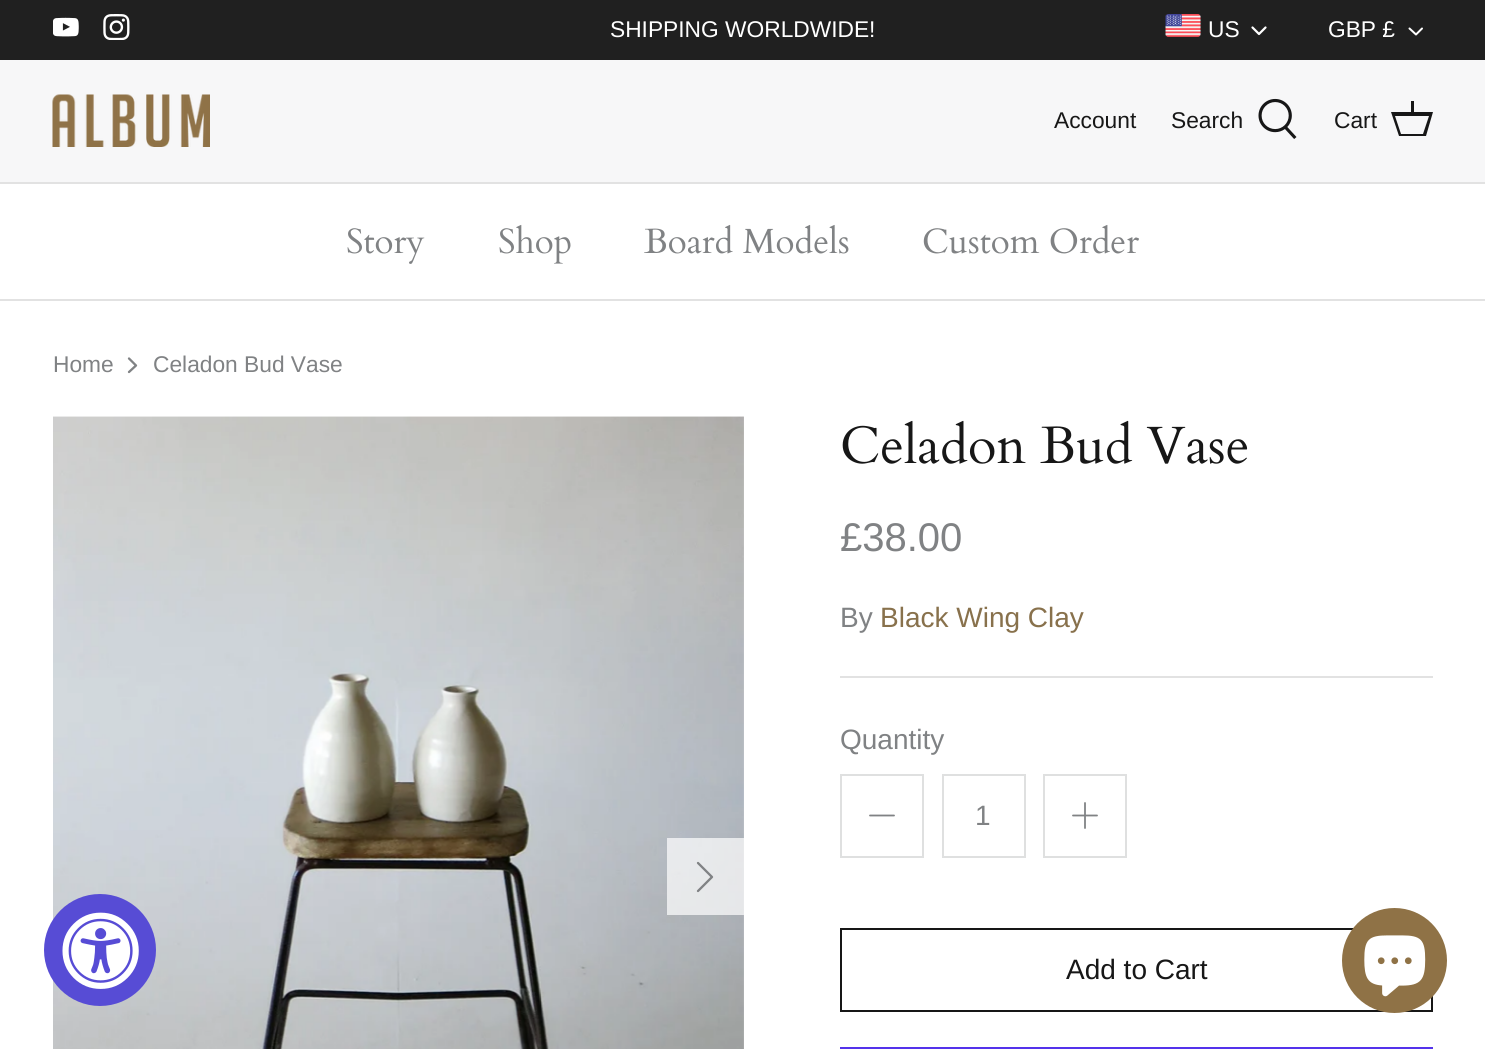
#include <cairo.h>
#include <math.h>
#include <stddef.h>


static void rgb(cairo_t *cr, int r, int g, int b)
{
	cairo_set_source_rgb(cr, r / 255.0, g / 255.0, b / 255.0);
}

static void face(cairo_t *cr, const char *family, double size, int italic, int bold)
{
	cairo_select_font_face(cr, family, italic ? CAIRO_FONT_SLANT_ITALIC : CAIRO_FONT_SLANT_NORMAL,
		bold ? CAIRO_FONT_WEIGHT_BOLD : CAIRO_FONT_WEIGHT_NORMAL);
	cairo_set_font_size(cr, size);
}

static void label(cairo_t *cr, double x, double y, const char *s)
{
	cairo_move_to(cr, x, y);
	cairo_show_text(cr, s);
}

static void rect(cairo_t *cr, double x, double y, double w, double h)
{
	cairo_rectangle(cr, x, y, w, h);
	cairo_fill(cr);
}

static void image(cairo_t *cr, const char *path, double x, double y, double w, double h)
{
	cairo_surface_t *image = cairo_image_surface_create_from_png(path);
	cairo_save(cr);
	cairo_set_source_surface(cr, image, x, y);
	cairo_rectangle(cr, x, y, w, h);
	cairo_fill(cr);
	cairo_restore(cr);
	cairo_surface_destroy(image);
}

static void draw(cairo_t *cr) {
	rgb(cr, 255, 255, 255);
	cairo_paint(cr);
	rgb(cr, 32, 32, 32);
	rect(cr, 0, 0, 1485, 60);
	image(cr, "image0.png", 53, 17, 26, 20);
	image(cr, "image1.png", 103, 14, 27, 26);
	face(cr, "Arimo", 22.75, 0, 0);
	rgb(cr, 255, 255, 255);
	label(cr, 610, 37, "SHIPPING WORLDWIDE!");
	image(cr, "image2.png", 1165, 14, 36, 23);
	label(cr, 1208, 37, "US");
	cairo_new_path(cr);
	cairo_move_to(cr, 1252.5, 27.5);
	cairo_line_to(cr, 1259, 34);
	cairo_line_to(cr, 1265.5, 27.5);
	cairo_set_line_width(cr, 2.2);
	cairo_set_line_cap(cr, CAIRO_LINE_CAP_ROUND);
	cairo_set_line_join(cr, CAIRO_LINE_JOIN_ROUND);
	cairo_stroke(cr);
	label(cr, 1328, 37, "GBP £");
	cairo_new_path(cr);
	cairo_move_to(cr, 1409.5, 28.5);
	cairo_line_to(cr, 1416, 34.5);
	cairo_line_to(cr, 1422, 28.5);
	cairo_set_line_width(cr, 2);
	cairo_stroke(cr);
	rgb(cr, 247, 247, 248);
	rect(cr, 0, 60, 1485, 122);
	rgb(cr, 226, 226, 226);
	rect(cr, 0, 182, 1485, 2);
	image(cr, "image3.png", 52, 94, 158, 53);
	rgb(cr, 23, 23, 23);
	label(cr, 1054, 128, "Account");
	label(cr, 1171, 128, "Search");
	image(cr, "image4.png", 1258, 98, 39, 41);
	label(cr, 1334, 128, "Cart");
	cairo_new_path(cr);
	cairo_move_to(cr, 1411, 112);
	cairo_line_to(cr, 1411, 101);
	cairo_line_to(cr, 1414, 101);
	cairo_line_to(cr, 1414, 112);
	cairo_line_to(cr, 1433, 112);
	cairo_line_to(cr, 1426, 136);
	cairo_line_to(cr, 1399, 136);
	cairo_line_to(cr, 1391, 112);
	cairo_close_path(cr);
	cairo_move_to(cr, 1395, 116);
	cairo_line_to(cr, 1401, 134);
	cairo_line_to(cr, 1423, 134);
	cairo_line_to(cr, 1429, 116);
	cairo_close_path(cr);
	cairo_fill(cr);
	rgb(cr, 226, 226, 226);
	rect(cr, 0, 299, 1485, 2);
	face(cr, "Cardo", 35, 0, 0);
	rgb(cr, 128, 130, 132);
	label(cr, 346, 253, "Story");
	label(cr, 498, 253, "Shop");
	label(cr, 644, 253, "Board Models");
	label(cr, 922, 253, "Custom Order");
	face(cr, "Arimo", 22.75, 0, 0);
	label(cr, 53, 372, "Home");
	cairo_new_path(cr);
	cairo_move_to(cr, 129, 372);
	cairo_line_to(cr, 136, 365.5);
	cairo_line_to(cr, 129, 358.5);
	cairo_set_line_width(cr, 2.3);
	cairo_stroke(cr);
	label(cr, 153, 372, "Celadon Bud Vase");
	image(cr, "image5.png", 53, 416, 691, 633);
	cairo_set_source_rgba(cr, 1, 1, 1, 0.7);
	rect(cr, 667, 838, 77, 77);
	cairo_new_path(cr);
	cairo_move_to(cr, 698, 891);
	cairo_line_to(cr, 712, 877);
	cairo_line_to(cr, 698, 863);
	rgb(cr, 128, 130, 132);
	cairo_stroke(cr);
	face(cr, "Cardo", 52.5, 0, 0);
	rgb(cr, 23, 23, 23);
	label(cr, 840, 463, "Celadon Bud Vase");
	face(cr, "Arimo", 40, 0, 0);
	rgb(cr, 128, 130, 132);
	label(cr, 840, 551, "£38.00");
	face(cr, "Arimo", 28, 0, 0);
	label(cr, 840, 627, "By");
	rgb(cr, 136, 113, 76);
	label(cr, 880, 627, "Black Wing Clay");
	rgb(cr, 226, 226, 226);
	rect(cr, 840, 676, 593, 2);
	rgb(cr, 128, 130, 132);
	label(cr, 840, 749, "Quantity");
	cairo_rectangle(cr, 841, 775, 82, 82);
	rgb(cr, 223, 224, 224);
	cairo_set_line_width(cr, 2);
	cairo_set_line_cap(cr, CAIRO_LINE_CAP_BUTT);
	cairo_set_line_join(cr, CAIRO_LINE_JOIN_MITER);
	cairo_stroke(cr);
	cairo_new_path(cr);
	cairo_move_to(cr, 870, 815.5);
	cairo_line_to(cr, 894, 815.5);
	rgb(cr, 128, 130, 132);
	cairo_set_line_width(cr, 1.8);
	cairo_set_line_cap(cr, CAIRO_LINE_CAP_ROUND);
	cairo_set_line_join(cr, CAIRO_LINE_JOIN_ROUND);
	cairo_stroke(cr);
	cairo_rectangle(cr, 943, 775, 82, 82);
	rgb(cr, 223, 224, 224);
	cairo_set_line_width(cr, 2);
	cairo_set_line_cap(cr, CAIRO_LINE_CAP_BUTT);
	cairo_set_line_join(cr, CAIRO_LINE_JOIN_MITER);
	cairo_stroke(cr);
	rgb(cr, 128, 130, 132);
	label(cr, 975, 825, "1");
	cairo_rectangle(cr, 1044, 775, 82, 82);
	rgb(cr, 223, 224, 224);
	cairo_stroke(cr);
	cairo_new_path(cr);
	cairo_move_to(cr, 1085, 803);
	cairo_line_to(cr, 1085, 828);
	cairo_move_to(cr, 1073, 815.5);
	cairo_line_to(cr, 1097, 815.5);
	rgb(cr, 128, 130, 132);
	cairo_set_line_width(cr, 1.8);
	cairo_set_line_cap(cr, CAIRO_LINE_CAP_ROUND);
	cairo_set_line_join(cr, CAIRO_LINE_JOIN_ROUND);
	cairo_stroke(cr);
	cairo_rectangle(cr, 841, 929, 591, 82);
	rgb(cr, 23, 23, 23);
	cairo_set_line_width(cr, 2);
	cairo_set_line_cap(cr, CAIRO_LINE_CAP_BUTT);
	cairo_set_line_join(cr, CAIRO_LINE_JOIN_MITER);
	cairo_stroke(cr);
	label(cr, 1066, 979, "Add to Cart");
	rgb(cr, 84, 51, 235);
	rect(cr, 840, 1047, 593, 2);
	rgb(cr, 87, 76, 213);
	cairo_new_path(cr);
	cairo_arc(cr, 100, 950, 56, 0, 2 * M_PI);
	cairo_fill(cr);
	image(cr, "image6.png", 62, 912, 77, 77);
	rgb(cr, 143, 114, 70);
	cairo_arc(cr, 1394.5, 960.5, 52.5, 0, 2 * M_PI);
	cairo_fill(cr);
	image(cr, "image7.png", 1364, 935, 62, 62);
}

int main(void) {
	cairo_surface_t *surface = cairo_image_surface_create(CAIRO_FORMAT_RGB24, 1485, 1049);
	cairo_t *cr = cairo_create(surface);
	cairo_font_options_t *options = cairo_font_options_create();
	cairo_font_options_set_hint_metrics(options, CAIRO_HINT_METRICS_OFF);
	cairo_font_options_set_hint_style(options, CAIRO_HINT_STYLE_NONE);
	cairo_set_font_options(cr, options);
	cairo_set_miter_limit(cr, 4);
	draw(cr);
	cairo_surface_write_to_png(surface, "render.png");
	cairo_font_options_destroy(options);
	cairo_destroy(cr);
	cairo_surface_destroy(surface);
	return 0;
}
